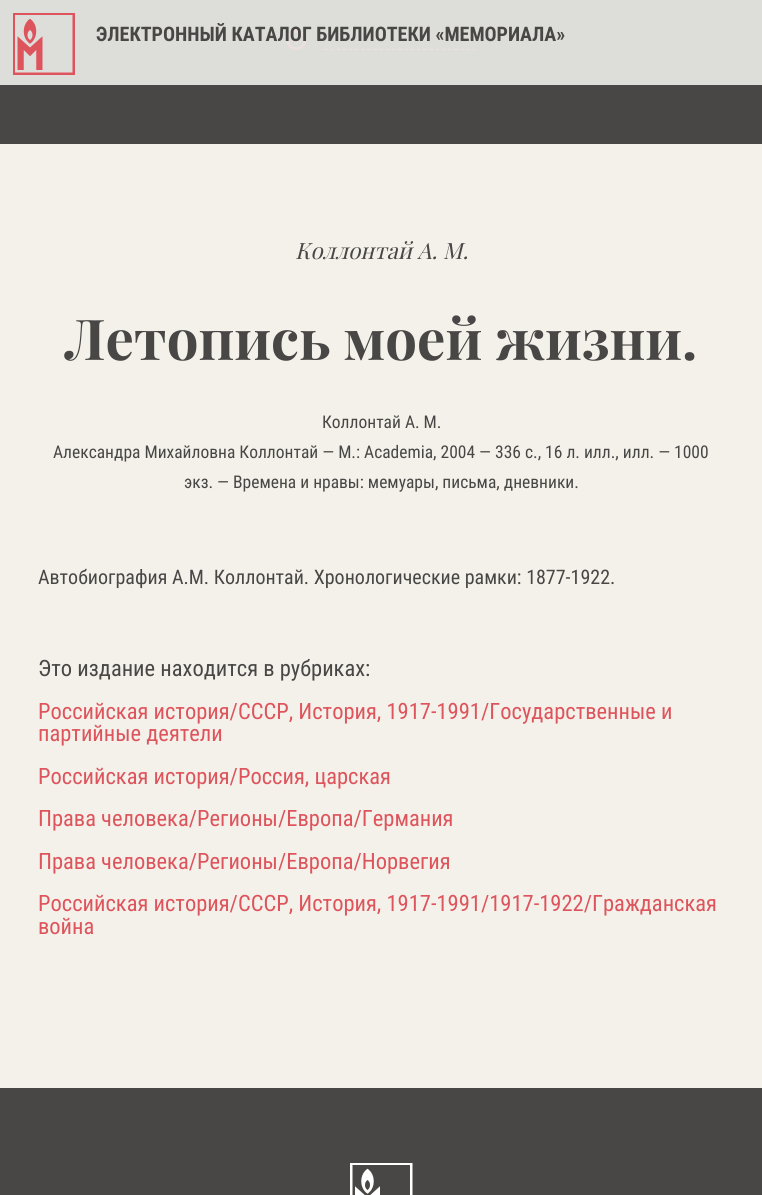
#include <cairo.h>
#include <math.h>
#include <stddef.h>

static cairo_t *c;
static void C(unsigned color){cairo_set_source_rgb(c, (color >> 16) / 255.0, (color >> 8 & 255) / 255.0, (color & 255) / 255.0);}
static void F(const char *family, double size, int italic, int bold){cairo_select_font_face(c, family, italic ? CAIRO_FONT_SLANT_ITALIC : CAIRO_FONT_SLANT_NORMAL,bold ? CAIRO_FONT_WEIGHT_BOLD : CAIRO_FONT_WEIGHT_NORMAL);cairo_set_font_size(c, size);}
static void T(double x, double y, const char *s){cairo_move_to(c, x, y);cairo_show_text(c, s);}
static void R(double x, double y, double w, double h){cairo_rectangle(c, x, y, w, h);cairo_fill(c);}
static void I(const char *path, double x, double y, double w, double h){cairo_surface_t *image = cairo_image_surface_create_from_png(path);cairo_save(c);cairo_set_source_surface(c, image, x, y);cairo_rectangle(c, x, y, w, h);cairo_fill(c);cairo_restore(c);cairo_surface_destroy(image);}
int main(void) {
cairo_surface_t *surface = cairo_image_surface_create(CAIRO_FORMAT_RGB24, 762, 1195);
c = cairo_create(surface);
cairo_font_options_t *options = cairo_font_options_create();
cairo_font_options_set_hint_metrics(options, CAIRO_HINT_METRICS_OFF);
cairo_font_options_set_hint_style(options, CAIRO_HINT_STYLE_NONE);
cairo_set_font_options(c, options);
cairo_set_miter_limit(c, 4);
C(0xf4f1ea);
cairo_paint(c);
C(0xdddeda);
R(0,0,762,85);
I("1.png",13,13,62,62);
I("2.png",286,30,20,20);
F("Roboto Condensed",20,0,1);
C(0x484745);
T(96,41,"ЭЛЕКТРОННЫЙ КАТАЛОГ БИБЛИОТЕКИ «МЕМОРИАЛА»");
R(0,85,762,59);
cairo_new_path(c);
cairo_move_to(c,324,49.5);
cairo_line_to(c,476,49.5);
C(0xece0dc);
cairo_set_line_width(c,1.2);
cairo_set_dash(c,(double[]){3.75,2.45},2,0);
cairo_stroke(c);
F("Playfair Display",22.5,1,0);
C(0x484745);
T(295,259,"Коллонтай А. М.");
F("Playfair Display",56.25,0,1);
T(65,360,"Летопись моей жизни.");
F("Roboto Condensed",17.5,0,0);
T(322,428,"Коллонтай А. М.");
T(53,458,"Александра Михайловна Коллонтай — М.: Academia, 2004 — 336 с., 16 л. илл., илл. — 1000");
T(184,488,"экз. — Времена и нравы: мемуары, письма, дневники.");
F("Roboto Condensed",20,0,0);
T(38,584,"Автобиография А.М. Коллонтай. Хронологические рамки: 1877-1922.");
F("Roboto Condensed",22.5,0,0);
T(38,676,"Это издание находится в рубриках:");
C(0xdd545c);
T(38,719,"Российская история/СССР, История, 1917-1991/Государственные и");
T(38,741,"партийные деятели");
T(38,784,"Российская история/Россия, царская");
T(38,826,"Права человека/Регионы/Европа/Германия");
T(38,869,"Права человека/Регионы/Европа/Норвегия");
T(38,911,"Российская история/СССР, История, 1917-1991/1917-1922/Гражданская");
T(38,934,"война");
C(0x484745);
R(0,1088,762,107);
I("3.png",350,1163,63,32);
cairo_surface_write_to_png(surface, "o.png");
cairo_font_options_destroy(options);
cairo_destroy(c);
cairo_surface_destroy(surface);
return 0;
}
